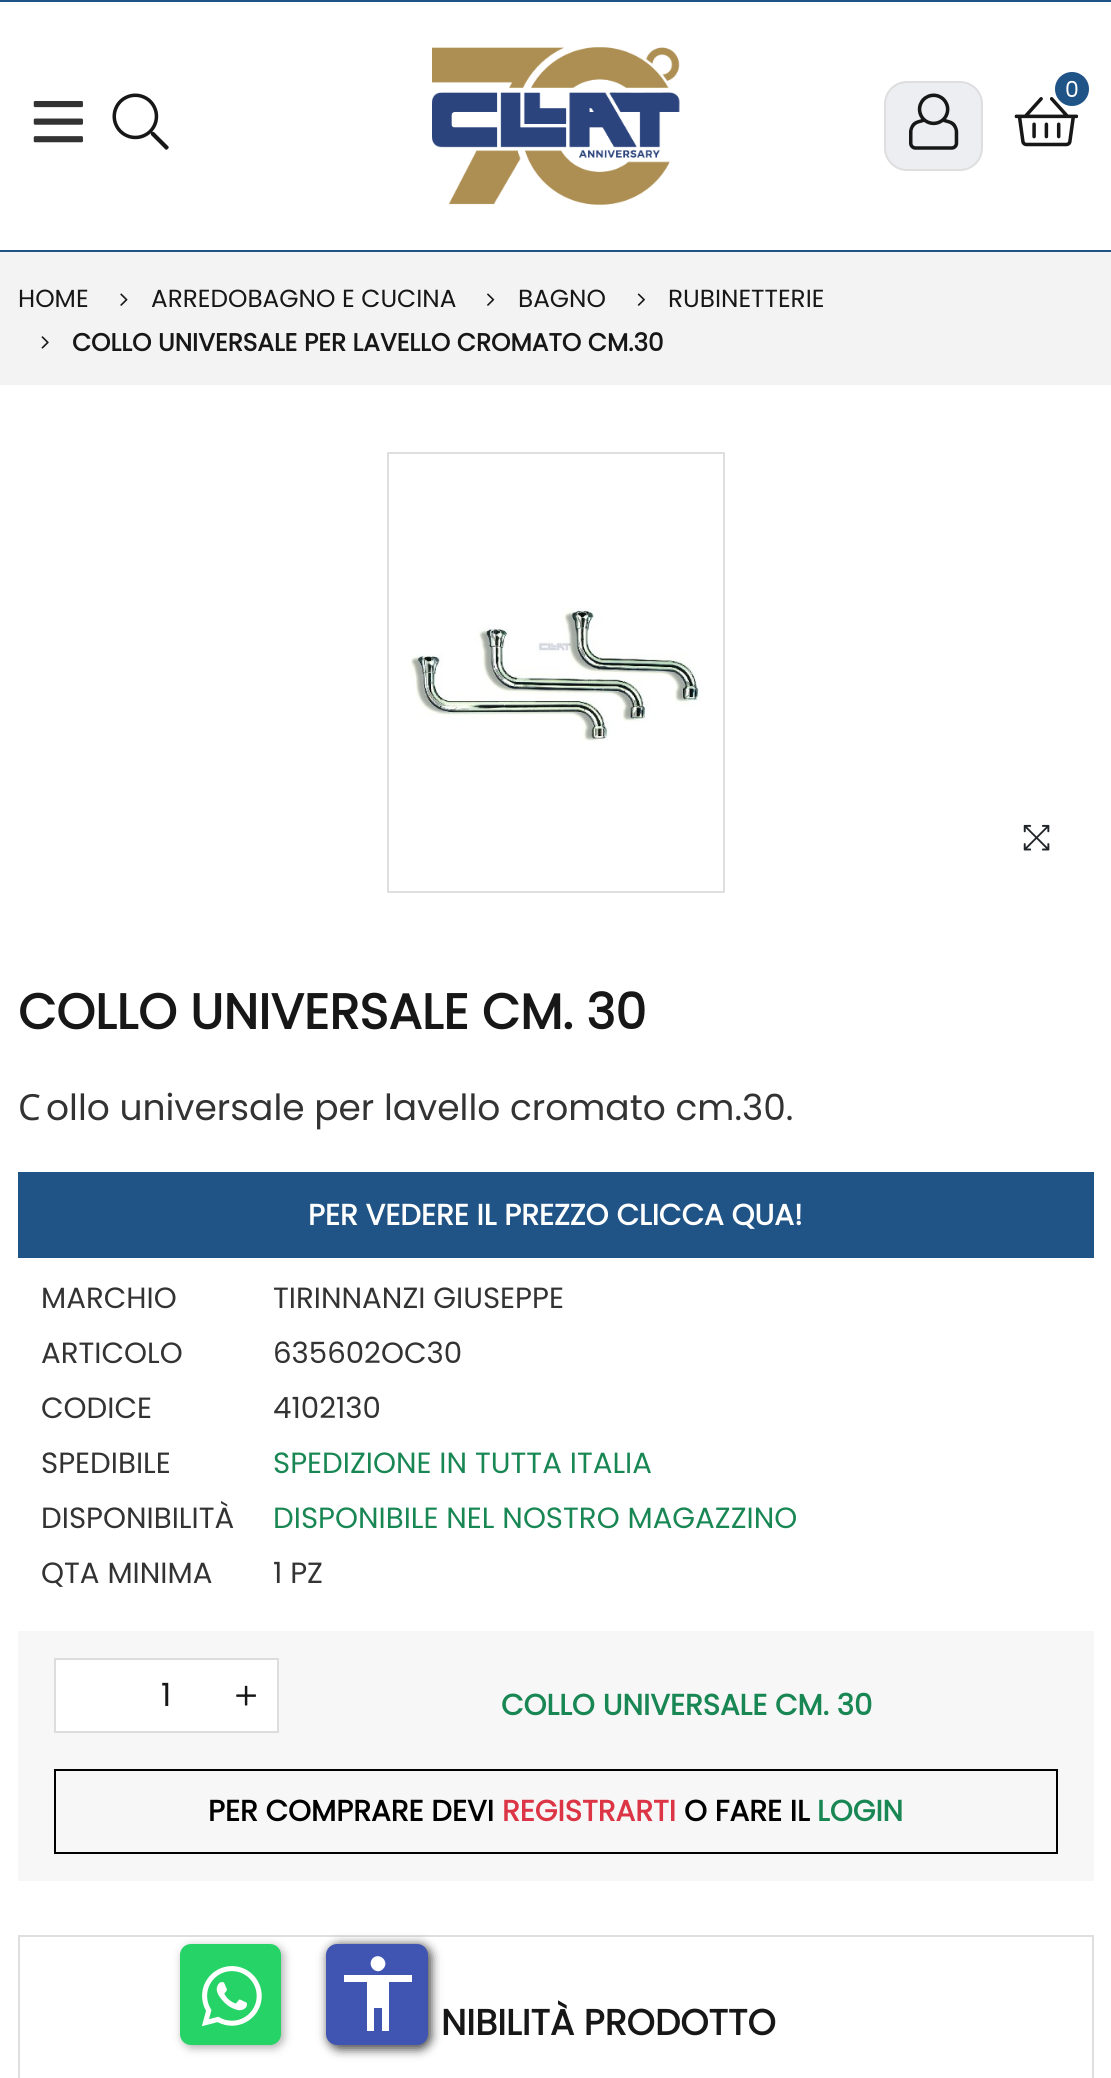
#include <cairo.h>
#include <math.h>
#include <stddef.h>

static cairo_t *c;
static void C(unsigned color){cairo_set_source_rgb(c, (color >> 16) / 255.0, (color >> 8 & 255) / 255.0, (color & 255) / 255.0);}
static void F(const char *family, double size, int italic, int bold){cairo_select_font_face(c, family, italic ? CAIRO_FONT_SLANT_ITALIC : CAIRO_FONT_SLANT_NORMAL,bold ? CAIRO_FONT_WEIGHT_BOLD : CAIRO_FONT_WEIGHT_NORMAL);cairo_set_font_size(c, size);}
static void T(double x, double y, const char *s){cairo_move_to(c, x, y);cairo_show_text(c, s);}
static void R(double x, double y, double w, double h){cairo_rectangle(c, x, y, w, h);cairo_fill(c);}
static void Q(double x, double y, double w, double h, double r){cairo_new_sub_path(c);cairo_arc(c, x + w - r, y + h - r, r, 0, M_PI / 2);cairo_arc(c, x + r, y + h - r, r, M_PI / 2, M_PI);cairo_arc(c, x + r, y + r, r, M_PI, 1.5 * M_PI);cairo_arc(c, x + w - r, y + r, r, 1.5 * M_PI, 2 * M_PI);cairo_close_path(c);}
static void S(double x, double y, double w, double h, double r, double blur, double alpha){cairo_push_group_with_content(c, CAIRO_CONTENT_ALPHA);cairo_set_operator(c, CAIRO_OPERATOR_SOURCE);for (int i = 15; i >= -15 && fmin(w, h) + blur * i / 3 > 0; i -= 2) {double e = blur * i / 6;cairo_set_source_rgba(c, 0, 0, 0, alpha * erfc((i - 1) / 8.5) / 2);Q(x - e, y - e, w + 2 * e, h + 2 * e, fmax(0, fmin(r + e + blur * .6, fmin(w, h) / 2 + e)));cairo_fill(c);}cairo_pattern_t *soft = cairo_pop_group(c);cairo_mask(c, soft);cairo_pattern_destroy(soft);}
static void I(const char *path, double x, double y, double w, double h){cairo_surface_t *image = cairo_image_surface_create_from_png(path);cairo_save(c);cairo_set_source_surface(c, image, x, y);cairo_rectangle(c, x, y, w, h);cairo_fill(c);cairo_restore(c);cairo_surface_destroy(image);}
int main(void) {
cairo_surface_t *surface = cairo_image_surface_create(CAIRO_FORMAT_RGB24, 1111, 2078);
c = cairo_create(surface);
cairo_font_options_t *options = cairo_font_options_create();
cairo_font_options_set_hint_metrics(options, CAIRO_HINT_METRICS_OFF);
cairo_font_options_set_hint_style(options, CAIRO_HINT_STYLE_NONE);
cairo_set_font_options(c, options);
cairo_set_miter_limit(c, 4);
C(0xffffff);
cairo_paint(c);
C(0x215486);
R(0,0,1111,2);
R(0,250,1111,2);
I("1.png",432,47,248,158);
C(0xeceef2);
Q(885,82,97,88,22);
cairo_fill_preserve(c);
C(0xdededf);
cairo_stroke(c);
I("2.png",909,93,50,57);
I("3.png",1014,97,65,50);
C(0x215486);
cairo_arc(c,1072,89,17,0,2 * M_PI);
cairo_fill(c);
F("Poppins",22,0,0);
C(0xffffff);
T(1065,97,"0");
I("4.png",33,101,50,42);
I("5.png",112,93,57,57);
C(0xf3f3f3);
R(0,252,1111,133);
F("Poppins",24.75,0,0);
C(0x171717);
T(18,307,"HOME");
I("6.png",120,293,8,13);
T(151,307,"ARREDOBAGNO E CUCINA");
I("7.png",487,293,8,13);
T(518,307,"BAGNO");
I("8.png",637,293,8,13);
T(668,307,"RUBINETTERIE");
I("9.png",41,336,8,13);
F("Poppins",24.75,0,1);
T(72,351,"COLLO UNIVERSALE PER LAVELLO CROMATO CM.30");
cairo_rectangle(c,388,453,336,439);
C(0xdfdfdf);
cairo_stroke(c);
I("10.png",410,608,291,133);
I("11.png",1023,824,27,27);
F("Poppins",49.5,0,1);
C(0x171717);
T(18,1029,"COLLO UNIVERSALE CM. 30");
F("Noto Sans",36,0,0);
C(0x333333);
T(18,1120,"C");
F("Poppins",36,0,0);
T(46,1120,"ollo universale per lavello cromato cm.30.");
C(0x215486);
R(18,1172,1076,86);
F("Poppins",29.25,0,1);
C(0xffffff);
T(308,1225,"PER VEDERE IL PREZZO CLICCA QUA!");
F("Poppins",29.25,0,0);
C(0x333333);
T(41,1308,"MARCHIO");
T(273,1308,"TIRINNANZI GIUSEPPE");
T(41,1363,"ARTICOLO");
T(273,1363,"635602OC30");
T(41,1418,"CODICE");
T(273,1418,"4102130");
T(41,1473,"SPEDIBILE");
C(0x198754);
T(273,1473,"SPEDIZIONE IN TUTTA ITALIA");
C(0x333333);
T(41,1528,"DISPONIBILITÀ");
C(0x198754);
T(273,1528,"DISPONIBILE NEL NOSTRO MAGAZZINO");
C(0x333333);
T(41,1583,"QTA MINIMA");
T(273,1583,"1 PZ");
C(0xf7f7f7);
R(18,1631,1076,250);
C(0xffffff);
cairo_rectangle(c,55,1659,223,73);
cairo_fill_preserve(c);
C(0xdddddd);
cairo_stroke(c);
F("Poppins",32,0,0);
C(0x171717);
T(161,1706,"1");
I("12.png",236,1685,20,21);
F("Poppins",29.25,0,1);
C(0x198754);
T(501,1715,"COLLO UNIVERSALE CM. 30");
cairo_rectangle(c,55,1770,1002,83);
C(0x000000);
cairo_stroke(c);
T(208,1821,"PER COMPRARE DEVI");
C(0xdc3545);
T(502,1821,"REGISTRARTI");
C(0x000000);
T(684,1821,"O FARE IL");
C(0x198754);
T(817,1821,"LOGIN");
cairo_rectangle(c,19,1936,1074,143);
C(0xdfdfdf);
cairo_stroke(c);
F("Poppins",36,0,1);
C(0x171717);
T(441,2035,"NIBILITÀ PRODOTTO");
C(0x000000);
S(329,1946,101,102,11,5.5,.5);
C(0x3c3c3c);
S(182,1946,102,102,11,4.5,.4);
C(0x25d366);
Q(180,1944,101,101,11);
cairo_fill(c);
I("13.png",201,1966,61,61);
C(0x000000);
S(329,1946,101,102,11,5.5,.5);
C(0x4054b2);
Q(326,1944,102,101,11);
cairo_fill(c);
C(0xffffff);
cairo_new_path(c);
cairo_move_to(c,412,1982);
cairo_line_to(c,389,1982);
cairo_line_to(c,389,2031);
cairo_line_to(c,382,2031);
cairo_line_to(c,382,2008);
cairo_line_to(c,374,2008);
cairo_line_to(c,374,2031);
cairo_line_to(c,367,2031);
cairo_line_to(c,367,1982);
cairo_line_to(c,344,1982);
cairo_line_to(c,344,1975);
cairo_line_to(c,412,1975);
cairo_close_path(c);
cairo_move_to(c,373,1958);
cairo_curve_to(c,380,1952,390,1962,383,1969);
cairo_curve_to(c,376,1976,366,1965,373,1958);
cairo_close_path(c);
cairo_fill(c);
cairo_surface_write_to_png(surface, "o.png");
cairo_font_options_destroy(options);
cairo_destroy(c);
cairo_surface_destroy(surface);
return 0;
}
